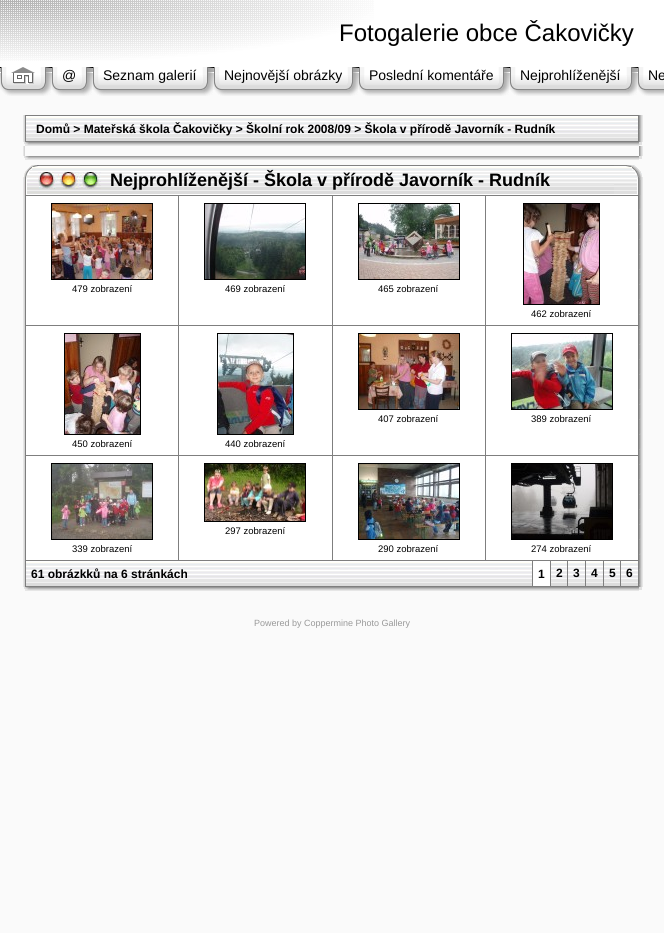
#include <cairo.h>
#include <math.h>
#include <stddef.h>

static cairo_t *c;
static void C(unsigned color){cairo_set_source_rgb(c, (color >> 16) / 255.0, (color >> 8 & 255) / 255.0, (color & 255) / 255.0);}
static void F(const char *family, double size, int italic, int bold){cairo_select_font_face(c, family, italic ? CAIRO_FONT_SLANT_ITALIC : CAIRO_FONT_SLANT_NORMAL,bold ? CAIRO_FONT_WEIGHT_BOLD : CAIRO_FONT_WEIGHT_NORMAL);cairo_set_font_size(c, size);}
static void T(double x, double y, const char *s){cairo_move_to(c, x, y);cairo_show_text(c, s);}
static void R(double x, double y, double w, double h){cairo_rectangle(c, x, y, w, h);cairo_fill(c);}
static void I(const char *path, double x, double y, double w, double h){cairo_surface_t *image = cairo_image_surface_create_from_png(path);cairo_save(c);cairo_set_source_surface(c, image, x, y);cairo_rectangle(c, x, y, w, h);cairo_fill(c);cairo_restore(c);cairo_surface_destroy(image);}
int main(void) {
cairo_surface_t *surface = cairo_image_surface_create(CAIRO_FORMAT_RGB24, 664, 933);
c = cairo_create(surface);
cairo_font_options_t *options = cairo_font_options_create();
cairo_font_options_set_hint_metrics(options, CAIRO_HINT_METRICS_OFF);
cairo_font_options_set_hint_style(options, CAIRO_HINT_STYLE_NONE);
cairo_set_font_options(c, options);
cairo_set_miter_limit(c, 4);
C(0xfafafa);
cairo_paint(c);
C(0xffffff);
R(0,0,664,65);
I("1.png",0,0,374,61);
F("Liberation Sans",24,0,0);
C(0x000000);
T(339,41,"Fotogalerie obce Čakovičky");
I("2.png",0,65,664,25);
I("3.png",1,67,10,29);
I("4.png",11,67,24,29);
I("5.png",11,67,24,17);
I("6.png",35,67,16,29);
I("3.png",52,67,10,29);
I("7.png",62,67,14,29);
F("Liberation Sans",14,0,0);
T(62,80,"@");
I("6.png",76,67,16,29);
I("3.png",93,67,10,29);
I("8.png",103,67,94,29);
T(103,80,"Seznam galerií");
I("6.png",197,67,16,29);
I("3.png",214,67,10,29);
I("9.png",224,67,118,29);
T(224,80,"Nejnovější obrázky");
I("6.png",342,67,16,29);
I("3.png",359,67,10,29);
I("10.png",369,67,124,29);
T(369,80,"Poslední komentáře");
I("6.png",493,67,16,29);
I("3.png",510,67,10,29);
I("11.png",520,67,101,29);
T(520,80,"Nejprohlíženější");
I("6.png",621,67,16,29);
I("3.png",638,67,10,29);
I("12.png",648,67,16,29);
T(648,80,"Ne");
I("13.png",23,115,2,27);
C(0x7f7f7f);
R(25,115,614,27);
C(0xffffff);
R(26,116,612,1);
I("14.png",26,117,612,24);
F("Liberation Sans",12,0,1);
C(0x000000);
T(36,133,"Domů > Mateřská škola Čakovičky > Školní rok 2008/09 > Škola v přírodě Javorník - Rudník");
I("15.png",639,115,4,27);
C(0xe3e3e3);
R(24,142,1,2);
I("16.png",25,142,614,4);
I("17.png",25,142,4,3);
C(0xe1e1e1);
R(639,142,3,3);
I("18.png",23,146,2,10);
I("19.png",639,146,4,10);
C(0xe3e3e3);
R(24,156,1,2);
I("16.png",25,156,614,4);
I("17.png",25,156,4,3);
C(0xe1e1e1);
R(639,156,3,3);
I("20.png",23,165,87,30);
I("21.png",110,165,504,30);
F("Liberation Sans",18,0,1);
C(0x000000);
T(110,186,"Nejprohlíženější - Škola v přírodě Javorník - Rudník");
I("22.png",614,165,29,30);
I("23.png",23,195,2,392);
C(0x7f7f7f);
R(25,195,614,392);
C(0xffffff);
R(26,196,152,129);
cairo_rectangle(c,51.5,203.5,101,76);
C(0x000000);
cairo_set_line_width(c,1);
cairo_stroke(c);
I("24.png",52,204,100,75);
F("Liberation Sans",9.5,0,0);
T(72,292,"479 zobrazení");
C(0xffffff);
R(179,196,153,129);
cairo_rectangle(c,204.5,203.5,101,76);
C(0x000000);
cairo_stroke(c);
I("25.png",205,204,100,75);
T(225,292,"469 zobrazení");
C(0xffffff);
R(333,196,152,129);
cairo_rectangle(c,358.5,203.5,101,76);
C(0x000000);
cairo_stroke(c);
I("26.png",359,204,100,75);
T(378,292,"465 zobrazení");
C(0xffffff);
R(486,196,152,129);
cairo_rectangle(c,523.5,203.5,76,101);
C(0x000000);
cairo_stroke(c);
I("27.png",524,204,75,100);
T(531,317,"462 zobrazení");
C(0xffffff);
R(333,326,152,129);
cairo_rectangle(c,358.5,333.5,101,76);
C(0x000000);
cairo_stroke(c);
I("28.png",359,334,100,75);
T(378,422,"407 zobrazení");
C(0xffffff);
R(486,326,152,129);
cairo_rectangle(c,511.5,333.5,101,76);
C(0x000000);
cairo_stroke(c);
I("29.png",512,334,100,75);
T(531,422,"389 zobrazení");
C(0xffffff);
R(26,326,152,129);
cairo_rectangle(c,64.5,333.5,76,101);
C(0x000000);
cairo_stroke(c);
I("30.png",65,334,75,100);
T(72,447,"450 zobrazení");
C(0xffffff);
R(179,326,153,129);
cairo_rectangle(c,217.5,333.5,76,101);
C(0x000000);
cairo_stroke(c);
I("31.png",218,334,75,100);
T(225,447,"440 zobrazení");
C(0xffffff);
R(179,456,153,104);
cairo_rectangle(c,204.5,463.5,101,58);
C(0x000000);
cairo_stroke(c);
I("32.png",205,464,100,57);
T(225,534,"297 zobrazení");
C(0xffffff);
R(26,456,152,104);
cairo_rectangle(c,51.5,463.5,101,76);
C(0x000000);
cairo_stroke(c);
I("33.png",52,464,100,75);
T(72,552,"339 zobrazení");
C(0xffffff);
R(333,456,152,104);
cairo_rectangle(c,358.5,463.5,101,76);
C(0x000000);
cairo_stroke(c);
I("34.png",359,464,100,75);
T(378,552,"290 zobrazení");
C(0xffffff);
R(486,456,152,104);
cairo_rectangle(c,511.5,463.5,101,76);
C(0x000000);
cairo_stroke(c);
I("35.png",512,464,100,75);
T(531,552,"274 zobrazení");
C(0xffffff);
R(26,561,506,1);
I("36.png",26,562,506,24);
F("Liberation Sans",12,0,1);
C(0x000000);
T(31,578,"61 obrázkků na 6 stránkách");
C(0xffffff);
R(533,561,17,25);
C(0x000000);
T(538,578,"1");
C(0xffffff);
R(551,561,16,1);
I("37.png",551,562,16,24);
C(0x000000);
T(556,577,"2");
C(0xffffff);
R(568,561,17,1);
I("38.png",568,562,17,24);
C(0x000000);
T(573,577,"3");
C(0xffffff);
R(586,561,17,1);
I("38.png",586,562,17,24);
C(0x000000);
T(591,577,"4");
C(0xffffff);
R(604,561,16,1);
I("37.png",604,562,16,24);
C(0x000000);
T(609,577,"5");
C(0xffffff);
R(621,561,17,1);
I("38.png",621,562,17,24);
C(0x000000);
T(626,577,"6");
I("39.png",639,195,4,392);
C(0xe3e3e3);
R(24,587,1,2);
I("16.png",25,587,614,4);
I("17.png",25,587,4,3);
C(0xe1e1e1);
R(639,587,3,3);
F("Liberation Sans",9,0,0);
C(0x999999);
T(254,626,"Powered by Coppermine Photo Gallery");
cairo_surface_write_to_png(surface, "o.png");
cairo_font_options_destroy(options);
cairo_destroy(c);
cairo_surface_destroy(surface);
return 0;
}
